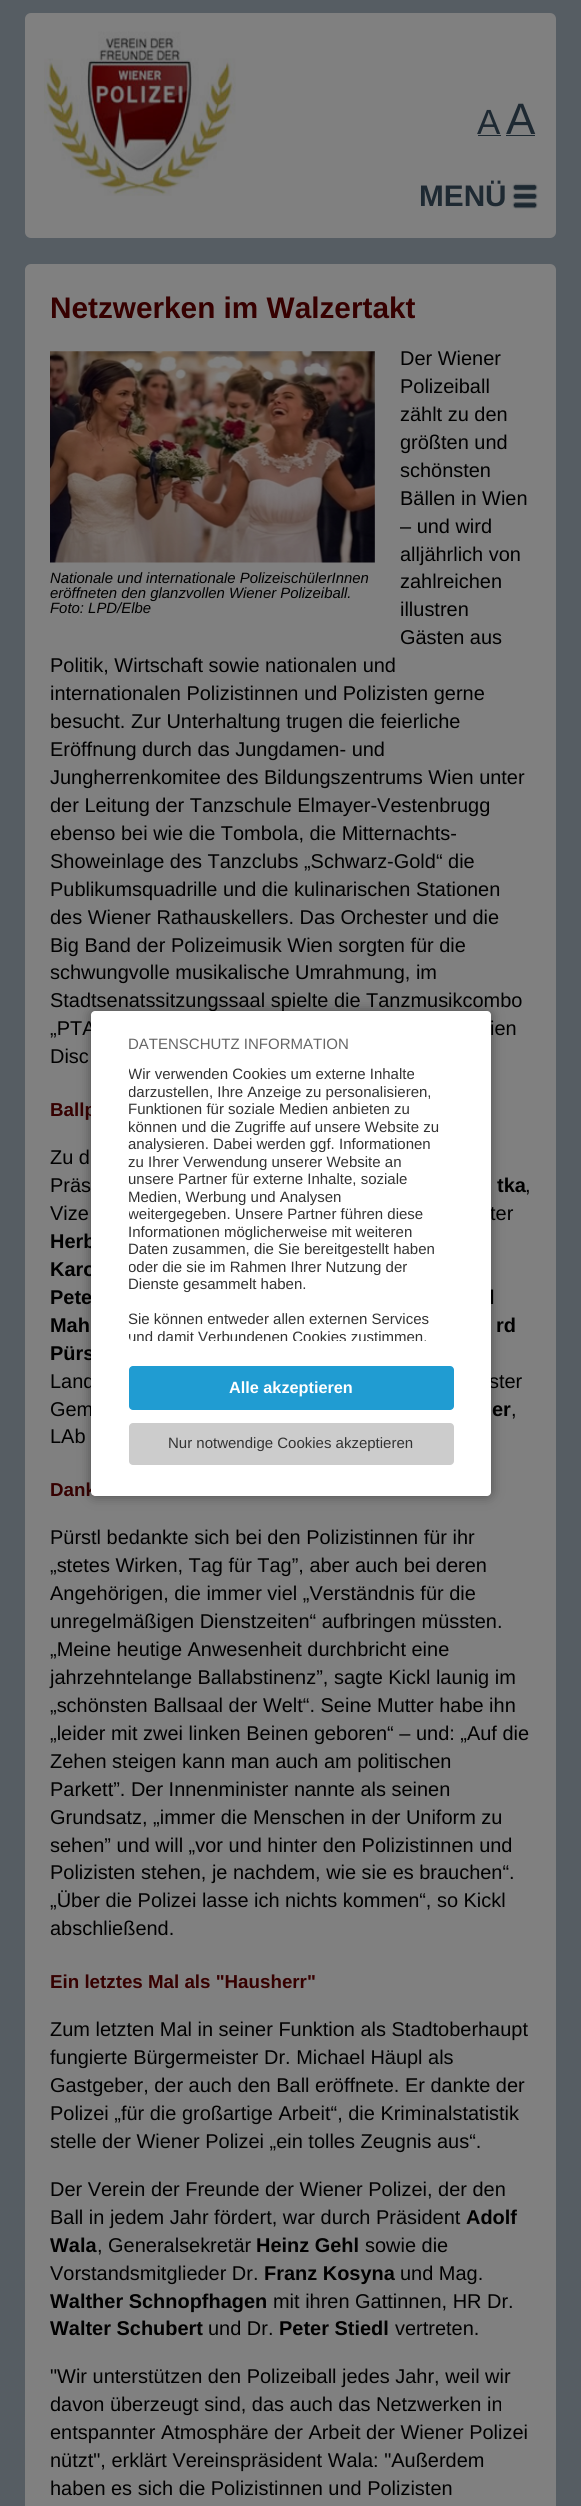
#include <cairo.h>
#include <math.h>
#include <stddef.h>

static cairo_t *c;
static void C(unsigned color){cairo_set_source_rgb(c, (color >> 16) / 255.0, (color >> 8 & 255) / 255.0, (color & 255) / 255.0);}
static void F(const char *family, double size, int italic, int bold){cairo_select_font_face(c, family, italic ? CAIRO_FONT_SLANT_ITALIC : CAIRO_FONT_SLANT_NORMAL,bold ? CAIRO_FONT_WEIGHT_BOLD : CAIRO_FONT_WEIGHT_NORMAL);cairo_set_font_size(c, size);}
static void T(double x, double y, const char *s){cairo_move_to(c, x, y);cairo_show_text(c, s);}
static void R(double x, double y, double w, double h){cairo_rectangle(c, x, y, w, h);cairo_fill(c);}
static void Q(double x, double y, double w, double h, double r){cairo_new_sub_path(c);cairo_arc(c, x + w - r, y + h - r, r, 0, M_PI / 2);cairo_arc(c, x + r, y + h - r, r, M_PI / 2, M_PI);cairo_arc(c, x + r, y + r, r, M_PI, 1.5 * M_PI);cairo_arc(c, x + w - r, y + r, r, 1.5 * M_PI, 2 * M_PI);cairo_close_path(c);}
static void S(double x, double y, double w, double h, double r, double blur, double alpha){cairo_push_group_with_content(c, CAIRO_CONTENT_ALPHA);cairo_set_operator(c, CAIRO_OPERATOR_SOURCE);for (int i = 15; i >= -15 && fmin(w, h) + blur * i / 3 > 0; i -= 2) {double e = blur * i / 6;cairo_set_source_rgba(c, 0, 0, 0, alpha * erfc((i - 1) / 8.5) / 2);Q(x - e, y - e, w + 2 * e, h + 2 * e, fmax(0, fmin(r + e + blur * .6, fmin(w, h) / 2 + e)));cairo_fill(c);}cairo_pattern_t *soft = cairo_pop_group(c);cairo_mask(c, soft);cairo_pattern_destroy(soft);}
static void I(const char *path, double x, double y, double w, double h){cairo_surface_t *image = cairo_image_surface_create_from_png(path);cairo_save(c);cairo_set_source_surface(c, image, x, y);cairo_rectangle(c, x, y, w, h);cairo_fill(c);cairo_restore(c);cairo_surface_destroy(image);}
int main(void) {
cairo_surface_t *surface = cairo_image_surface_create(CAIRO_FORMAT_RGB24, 581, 2506);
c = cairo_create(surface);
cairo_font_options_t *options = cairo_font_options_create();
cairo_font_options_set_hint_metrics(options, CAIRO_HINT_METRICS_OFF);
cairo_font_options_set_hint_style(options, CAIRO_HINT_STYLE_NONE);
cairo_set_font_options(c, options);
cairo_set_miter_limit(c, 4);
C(0x565d63);
cairo_paint(c);
C(0x808080);
Q(25,13,531,225,6);
cairo_fill(c);
I("1.png",44,31,192,165);
F("Liberation Sans",35,0,0);
C(0x1e2932);
T(477,134,"A");
C(0x1d2932);
R(478,135,23,1);
R(506,135,29,1);
F("Liberation Sans",44,0,0);
C(0x1e2932);
T(506,134,"A");
I("2.png",512,183,26,26);
F("Liberation Sans",29.75,0,1);
T(419,206,"MENÜ");
C(0x808080);
Q(25,264,531,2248,6);
cairo_fill(c);
C(0x360000);
T(50,318,"Netzwerken im Walzertakt");
F("Liberation Sans",19.95,0,0);
C(0x000000);
T(400,365,"Der Wiener");
T(400,393,"Polizeiball");
T(400,421,"zählt zu den");
T(400,449,"größten und");
T(400,477,"schönsten");
T(400,505,"Bällen in Wien");
T(400,533,"– und wird");
T(400,561,"alljährlich von");
T(400,588,"zahlreichen");
T(400,616,"illustren");
T(400,644,"Gästen aus");
T(50,672,"Politik, Wirtschaft sowie nationalen und");
T(50,700,"internationalen Polizistinnen und Polizisten gerne");
T(50,728,"besucht. Zur Unterhaltung trugen die feierliche");
T(50,756,"Eröffnung durch das Jungdamen- und");
T(50,784,"Jungherrenkomitee des Bildungszentrums Wien unter");
T(50,812,"der Leitung der Tanzschule Elmayer-Vestenbrugg");
T(50,840,"ebenso bei wie die Tombola, die Mitternachts-");
T(50,868,"Showeinlage des Tanzclubs „Schwarz-Gold“ die");
T(50,896,"Publikumsquadrille und die kulinarischen Stationen");
T(50,924,"des Wiener Rathauskellers. Das Orchester und die");
T(50,952,"Big Band der Polizeimusik Wien sorgten für die");
T(50,979,"schwungvolle musikalische Umrahmung, im");
T(50,1007,"Stadtsenatssitzungssaal spielte die Tanzmusikcombo");
T(50,1035,"„PTA");
T(490,1035,"ien");
T(50,1063,"Disc");
I("3.png",50,351,325,212);
F("Liberation Sans",14.9,1,0);
T(50,583,"Nationale und internationale PolizeischülerInnen");
T(50,598,"eröffneten den glanzvollen Wiener Polizeiball.");
T(50,613,"Foto: LPD/Elbe");
F("Liberation Sans",18.75,0,1);
C(0x360000);
T(50,1116,"Ballp");
F("Liberation Sans",19.95,0,0);
C(0x000000);
T(50,1164,"Zu d");
T(50,1192,"Präs");
F("Liberation Sans",19.95,0,1);
T(497,1192,"tka");
F("Liberation Sans",19.95,0,0);
T(525,1192,",");
T(50,1220,"Vize");
T(490,1220,"ter");
F("Liberation Sans",19.95,0,1);
T(50,1248,"Herb");
T(50,1276,"Karo");
T(50,1304,"Pete");
T(489,1304,"l");
T(50,1332,"Mah");
T(496,1332,"rd");
T(50,1360,"Pürs");
F("Liberation Sans",19.95,0,0);
T(50,1388,"Land");
T(489,1388,"ster");
T(50,1416,"Gem");
F("Liberation Sans",19.95,0,1);
T(492,1416,"er");
F("Liberation Sans",19.95,0,0);
T(511,1416,",");
T(50,1443,"LAb");
F("Liberation Sans",18.75,0,1);
C(0x360000);
T(50,1496,"Dank");
F("Liberation Sans",19.95,0,0);
C(0x000000);
T(50,1544,"Pürstl bedankte sich bei den Polizistinnen für ihr");
T(50,1572,"„stetes Wirken, Tag für Tag”, aber auch bei deren");
T(50,1600,"Angehörigen, die immer viel „Verständnis für die");
T(50,1628,"unregelmäßigen Dienstzeiten“ aufbringen müssten.");
T(50,1656,"„Meine heutige Anwesenheit durchbricht eine");
T(50,1684,"jahrzehntelange Ballabstinenz”, sagte Kickl launig im");
T(50,1712,"„schönsten Ballsaal der Welt“. Seine Mutter habe ihn");
T(50,1740,"„leider mit zwei linken Beinen geboren“ – und: „Auf die");
T(50,1768,"Zehen steigen kann man auch am politischen");
T(50,1796,"Parkett”. Der Innenminister nannte als seinen");
T(50,1824,"Grundsatz, „immer die Menschen in der Uniform zu");
T(50,1852,"sehen” und will „vor und hinter den Polizistinnen und");
T(50,1879,"Polizisten stehen, je nachdem, wie sie es brauchen“.");
T(50,1907,"„Über die Polizei lasse ich nichts kommen“, so Kickl");
T(50,1935,"abschließend.");
F("Liberation Sans",18.75,0,1);
C(0x360000);
T(50,1988,"Ein letztes Mal als \"Hausherr\"");
F("Liberation Sans",19.95,0,0);
C(0x000000);
T(50,2036,"Zum letzten Mal in seiner Funktion als Stadtoberhaupt");
T(50,2064,"fungierte Bürgermeister Dr. Michael Häupl als");
T(50,2092,"Gastgeber, der auch den Ball eröffnete. Er dankte der");
T(50,2120,"Polizei „für die großartige Arbeit“, die Kriminalstatistik");
T(50,2148,"stelle der Wiener Polizei „ein tolles Zeugnis aus“.");
T(50,2196,"Der Verein der Freunde der Wiener Polizei, der den");
T(50,2224,"Ball in jedem Jahr fördert, war durch Präsident");
F("Liberation Sans",19.95,0,1);
T(466,2224,"Adolf");
T(50,2252,"Wala");
F("Liberation Sans",19.95,0,0);
T(97,2252,", Generalsekretär");
F("Liberation Sans",19.95,0,1);
T(256,2252,"Heinz Gehl");
F("Liberation Sans",19.95,0,0);
T(365,2252,"sowie die");
T(50,2280,"Vorstandsmitglieder Dr.");
F("Liberation Sans",19.95,0,1);
T(264,2280,"Franz Kosyna");
F("Liberation Sans",19.95,0,0);
T(400,2280,"und Mag.");
F("Liberation Sans",19.95,0,1);
T(50,2308,"Walther Schnopfhagen");
F("Liberation Sans",19.95,0,0);
T(273,2308,"mit ihren Gattinnen, HR Dr.");
F("Liberation Sans",19.95,0,1);
T(50,2335,"Walter Schubert");
F("Liberation Sans",19.95,0,0);
T(208,2335,"und Dr.");
F("Liberation Sans",19.95,0,1);
T(279,2335,"Peter Stiedl");
F("Liberation Sans",19.95,0,0);
T(395,2335,"vertreten.");
T(50,2383,"\"Wir unterstützen den Polizeiball jedes Jahr, weil wir");
T(50,2411,"davon überzeugt sind, das auch das Netzwerken in");
T(50,2439,"entspannter Atmosphäre der Arbeit der Wiener Polizei");
T(50,2467,"nützt\", erklärt Vereinspräsident Wala: \"Außerdem");
T(50,2495,"haben es sich die Polizistinnen und Polizisten");
C(0x000000);
S(91,1011,400,485,4,6,.4);
C(0xffffff);
Q(91,1011,400,485,4);
cairo_fill(c);
F("Liberation Sans",15,0,0);
C(0x666666);
T(128,1049,"DATENSCHUTZ INFORMATION");
cairo_save(c);
Q(129,1066,325,275,4);
cairo_clip(c);
C(0x333333);
T(128,1079,"Wir verwenden Cookies um externe Inhalte");
T(128,1097,"darzustellen, Ihre Anzeige zu personalisieren,");
cairo_restore(c);
C(0x333333);
T(128,1114,"Funktionen für soziale Medien anbieten zu");
T(128,1132,"können und die Zugriffe auf unsere Website zu");
T(128,1149,"analysieren. Dabei werden ggf. Informationen");
T(128,1167,"zu Ihrer Verwendung unserer Website an");
T(128,1184,"unsere Partner für externe Inhalte, soziale");
T(128,1202,"Medien, Werbung und Analysen");
cairo_save(c);
Q(129,1066,325,275,4);
cairo_clip(c);
T(128,1219,"weitergegeben. Unsere Partner führen diese");
cairo_restore(c);
T(128,1237,"Informationen möglicherweise mit weiteren");
T(128,1254,"Daten zusammen, die Sie bereitgestellt haben");
cairo_save(c);
Q(129,1066,325,275,4);
cairo_clip(c);
T(128,1272,"oder die sie im Rahmen Ihrer Nutzung der");
cairo_restore(c);
T(128,1289,"Dienste gesammelt haben.");
T(128,1324,"Sie können entweder allen externen Services");
cairo_save(c);
Q(129,1066,325,275,4);
cairo_clip(c);
T(128,1342,"und damit Verbundenen Cookies zustimmen,");
cairo_restore(c);
C(0x209cd2);
Q(129,1366,325,44,4);
cairo_fill(c);
F("Liberation Sans",16.25,0,1);
C(0xffffff);
T(229,1393,"Alle akzeptieren");
C(0xcccccc);
Q(129,1423,325,42,4);
cairo_fill(c);
F("Liberation Sans",15,0,0);
C(0x333333);
T(168,1448,"Nur notwendige Cookies akzeptieren");
cairo_surface_write_to_png(surface, "o.png");
cairo_font_options_destroy(options);
cairo_destroy(c);
cairo_surface_destroy(surface);
return 0;
}
